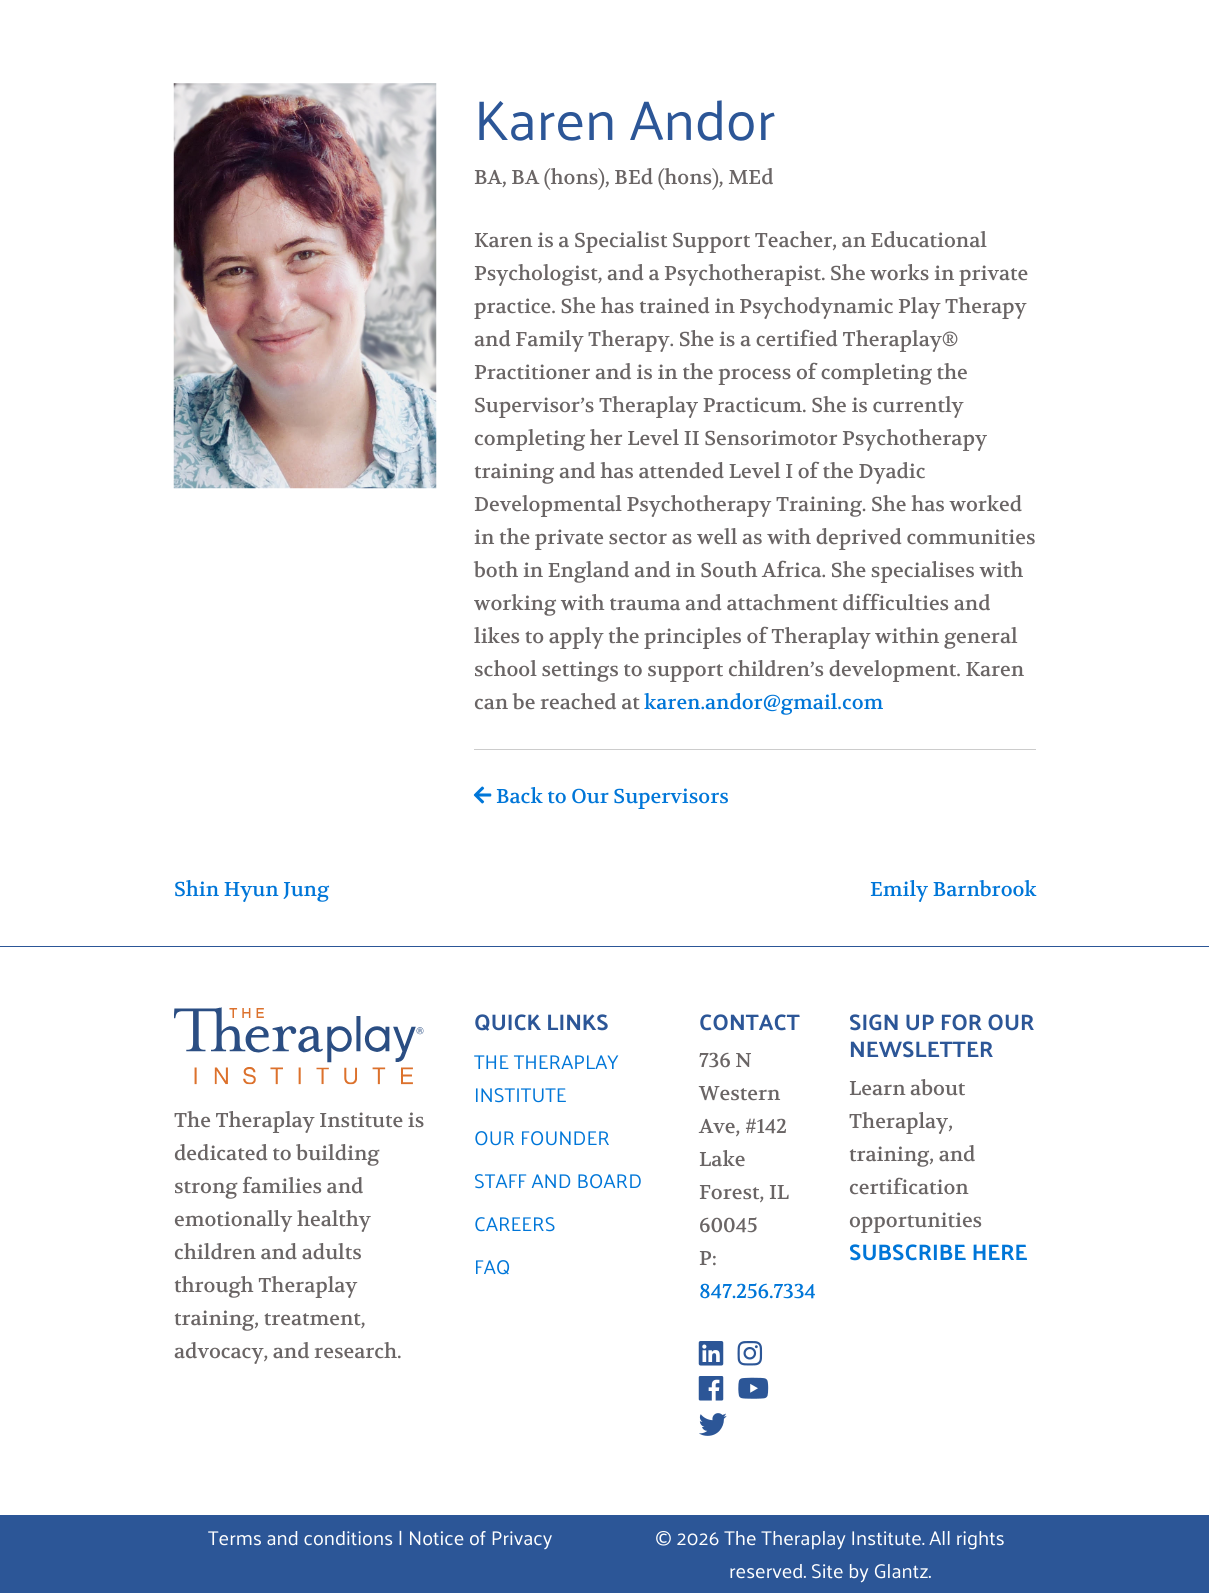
#include <cairo.h>
#include <math.h>
#include <stddef.h>

static cairo_t *c;
static void C(unsigned color){cairo_set_source_rgb(c, (color >> 16) / 255.0, (color >> 8 & 255) / 255.0, (color & 255) / 255.0);}
static void F(const char *family, double size, int italic, int bold){cairo_select_font_face(c, family, italic ? CAIRO_FONT_SLANT_ITALIC : CAIRO_FONT_SLANT_NORMAL,bold ? CAIRO_FONT_WEIGHT_BOLD : CAIRO_FONT_WEIGHT_NORMAL);cairo_set_font_size(c, size);}
static void T(double x, double y, const char *s){cairo_move_to(c, x, y);cairo_show_text(c, s);}
static void R(double x, double y, double w, double h){cairo_rectangle(c, x, y, w, h);cairo_fill(c);}
static void I(const char *path, double x, double y, double w, double h){cairo_surface_t *image = cairo_image_surface_create_from_png(path);cairo_save(c);cairo_set_source_surface(c, image, x, y);cairo_rectangle(c, x, y, w, h);cairo_fill(c);cairo_restore(c);cairo_surface_destroy(image);}
int main(void) {
cairo_surface_t *surface = cairo_image_surface_create(CAIRO_FORMAT_RGB24, 1209, 1593);
c = cairo_create(surface);
cairo_font_options_t *options = cairo_font_options_create();
cairo_font_options_set_hint_metrics(options, CAIRO_HINT_METRICS_OFF);
cairo_font_options_set_hint_style(options, CAIRO_HINT_STYLE_NONE);
cairo_set_font_options(c, options);
cairo_set_miter_limit(c, 4);
C(0xffffff);
cairo_paint(c);
I("1.png",173,83,264,406);
F("Palanquin",56.25,0,0);
C(0x2c5697);
T(474,140,"Karen Andor");
F("Volkhov",20,0,0);
C(0x6a6565);
T(474,184,"BA, BA (hons), BEd (hons), MEd");
T(474,247,"Karen is a Specialist Support Teacher, an Educational");
T(474,280,"Psychologist, and a Psychotherapist. She works in private");
T(474,313,"practice. She has trained in Psychodynamic Play Therapy");
T(474,346,"and Family Therapy. She is a certified Theraplay®");
T(474,379,"Practitioner and is in the process of completing the");
T(474,412,"Supervisor’s Theraplay Practicum. She is currently");
T(474,445,"completing her Level II Sensorimotor Psychotherapy");
T(474,478,"training and has attended Level I of the Dyadic");
T(474,511,"Developmental Psychotherapy Training. She has worked");
T(474,544,"in the private sector as well as with deprived communities");
T(474,577,"both in England and in South Africa. She specialises with");
T(474,610,"working with trauma and attachment difficulties and");
T(474,643,"likes to apply the principles of Theraplay within general");
T(474,676,"school settings to support children’s development. Karen");
T(474,709,"can be reached at");
C(0x0076d8);
T(644,709,"karen.andor@gmail.com");
C(0xcccccc);
R(474,749,562,1);
I("2.png",473,786,19,18);
C(0x0076d8);
T(496,803,"Back to Our Supervisors");
T(174,896,"Shin Hyun Jung");
T(870,896,"Emily Barnbrook");
C(0x2c5697);
R(0,946,1209,1);
I("3.png",174,1007,250,78);
C(0x6a6565);
T(174,1127,"The Theraplay Institute is");
T(174,1160,"dedicated to building");
T(174,1193,"strong families and");
T(174,1226,"emotionally healthy");
T(174,1259,"children and adults");
T(174,1292,"through Theraplay");
T(174,1325,"training, treatment,");
T(174,1358,"advocacy, and research.");
F("Palanquin",22.5,0,1);
C(0x2c5697);
T(474,1030,"QUICK LINKS");
F("Palanquin",20,0,0);
C(0x0076d8);
T(474,1069,"THE THERAPLAY");
T(474,1102,"INSTITUTE");
T(474,1145,"OUR FOUNDER");
T(474,1188,"STAFF AND BOARD");
T(474,1231,"CAREERS");
T(474,1274,"FAQ");
F("Palanquin",22.5,0,1);
C(0x2c5697);
T(699,1030,"CONTACT");
F("Volkhov",20,0,0);
C(0x6a6565);
T(699,1067,"736 N");
T(699,1100,"Western");
T(699,1133,"Ave, #142");
T(699,1166,"Lake");
T(699,1199,"Forest, IL");
T(699,1232,"60045");
T(699,1265,"P:");
C(0x0076d8);
T(699,1298,"847.256.7334");
I("4.png",698,1341,26,25);
I("5.png",737,1341,26,25);
I("6.png",698,1376,26,25);
I("7.png",738,1377,31,22);
I("8.png",699,1413,28,23);
F("Palanquin",22.5,0,1);
C(0x2c5697);
T(849,1030,"SIGN UP FOR OUR");
T(849,1057,"NEWSLETTER");
F("Volkhov",20,0,0);
C(0x6a6565);
T(849,1095,"Learn about");
T(849,1128,"Theraplay,");
T(849,1161,"training, and");
T(849,1194,"certification");
T(849,1227,"opportunities");
F("Palanquin",22.5,0,1);
C(0x0076d8);
T(849,1260,"SUBSCRIBE HERE");
C(0x2c5697);
R(0,1515,1209,78);
F("Palanquin",20,0,0);
C(0xffffff);
T(208,1545,"Terms and conditions | Notice of Privacy");
T(655,1545,"© 2026 The Theraplay Institute. All rights");
T(729,1578,"reserved. Site by Glantz.");
cairo_surface_write_to_png(surface, "o.png");
cairo_font_options_destroy(options);
cairo_destroy(c);
cairo_surface_destroy(surface);
return 0;
}
